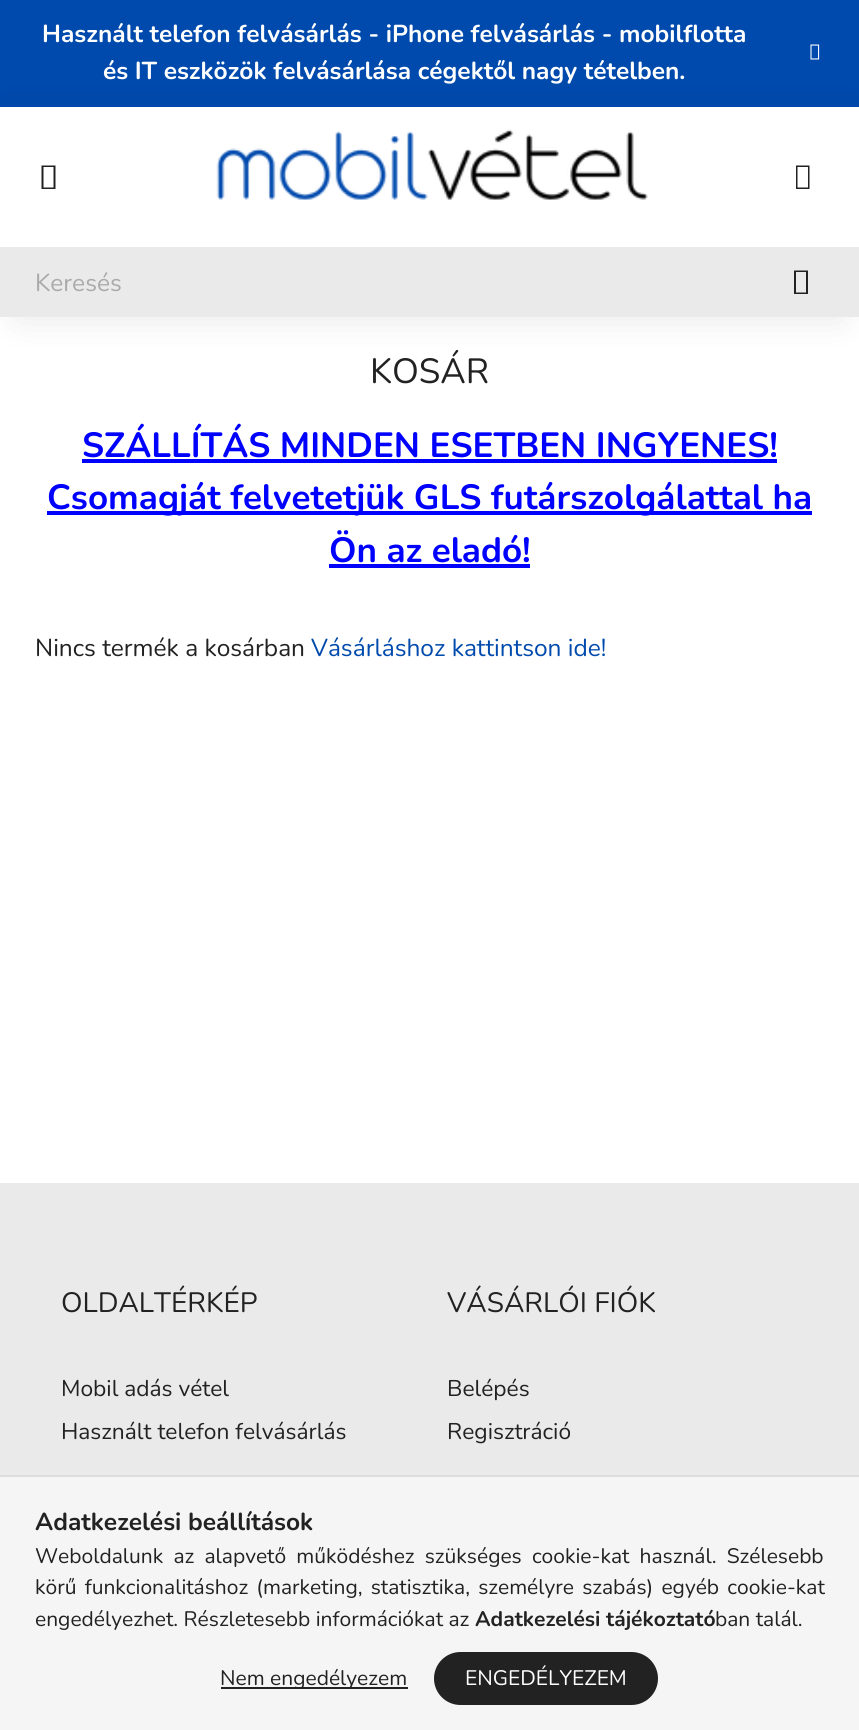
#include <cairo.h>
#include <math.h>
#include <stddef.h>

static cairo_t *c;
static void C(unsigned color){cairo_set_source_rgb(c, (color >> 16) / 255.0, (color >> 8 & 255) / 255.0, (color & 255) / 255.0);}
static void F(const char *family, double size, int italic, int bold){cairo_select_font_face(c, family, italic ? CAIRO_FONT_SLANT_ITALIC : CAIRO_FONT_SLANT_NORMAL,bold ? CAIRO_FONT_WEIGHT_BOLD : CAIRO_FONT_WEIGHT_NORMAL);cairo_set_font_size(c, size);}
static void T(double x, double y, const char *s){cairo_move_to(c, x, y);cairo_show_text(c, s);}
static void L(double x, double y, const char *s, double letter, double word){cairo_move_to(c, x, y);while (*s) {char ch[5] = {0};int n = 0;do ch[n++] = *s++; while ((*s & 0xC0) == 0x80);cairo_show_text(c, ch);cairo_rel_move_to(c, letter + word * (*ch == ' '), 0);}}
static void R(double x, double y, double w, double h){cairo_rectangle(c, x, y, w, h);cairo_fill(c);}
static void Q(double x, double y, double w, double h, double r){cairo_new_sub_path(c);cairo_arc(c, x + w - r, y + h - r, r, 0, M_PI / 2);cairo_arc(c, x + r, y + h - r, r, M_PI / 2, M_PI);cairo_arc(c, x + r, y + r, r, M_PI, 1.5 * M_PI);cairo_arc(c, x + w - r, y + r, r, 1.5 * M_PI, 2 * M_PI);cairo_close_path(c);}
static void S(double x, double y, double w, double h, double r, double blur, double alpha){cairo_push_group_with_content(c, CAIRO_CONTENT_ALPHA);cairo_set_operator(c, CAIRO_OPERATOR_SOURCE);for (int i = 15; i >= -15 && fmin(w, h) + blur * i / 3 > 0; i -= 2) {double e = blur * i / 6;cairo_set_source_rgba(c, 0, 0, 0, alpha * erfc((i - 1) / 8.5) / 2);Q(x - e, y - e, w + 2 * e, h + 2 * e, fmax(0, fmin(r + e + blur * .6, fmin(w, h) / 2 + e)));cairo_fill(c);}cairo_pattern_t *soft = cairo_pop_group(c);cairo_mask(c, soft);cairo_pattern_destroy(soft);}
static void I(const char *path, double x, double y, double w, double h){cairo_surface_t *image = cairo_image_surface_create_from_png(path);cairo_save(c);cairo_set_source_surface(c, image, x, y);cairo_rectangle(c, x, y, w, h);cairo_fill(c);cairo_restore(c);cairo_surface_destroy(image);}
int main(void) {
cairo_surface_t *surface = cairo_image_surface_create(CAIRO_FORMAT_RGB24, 859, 1730);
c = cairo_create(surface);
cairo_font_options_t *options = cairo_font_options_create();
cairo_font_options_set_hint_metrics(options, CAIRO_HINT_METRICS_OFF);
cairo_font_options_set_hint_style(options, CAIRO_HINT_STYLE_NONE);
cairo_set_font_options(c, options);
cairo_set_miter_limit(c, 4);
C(0xffffff);
cairo_paint(c);
C(0x004aad);
R(0,0,859,107);
F("Nunito",24.5,0,1);
C(0xffffff);
T(42,42,"Használt telefon felvásárlás - iPhone felvásárlás - mobilflotta");
T(103,79,"és IT eszközök felvásárlása cégektől nagy tételben.");
I("1.png",810,44,10,16);
C(0x000000);
S(0,107,859,140,0,17.5,.05);
C(0xffffff);
R(0,107,859,140);
C(0x222222);
cairo_new_path(c);
cairo_move_to(c,41.5,189);
cairo_line_to(c,41.5,165.5);
cairo_line_to(c,55.5,165.5);
cairo_line_to(c,55.5,189);
cairo_close_path(c);
cairo_move_to(c,43.5,187.5);
cairo_line_to(c,53.5,187.5);
cairo_line_to(c,53.5,167);
cairo_line_to(c,43.5,167);
cairo_close_path(c);
cairo_fill(c);
I("2.png",216,129,432,71);
cairo_new_path(c);
cairo_move_to(c,796,189);
cairo_line_to(c,796,165.5);
cairo_line_to(c,809.5,165.5);
cairo_line_to(c,809.5,189);
cairo_close_path(c);
cairo_move_to(c,797.5,187.5);
cairo_line_to(c,808,187.5);
cairo_line_to(c,808,167);
cairo_line_to(c,797.5,167);
cairo_close_path(c);
cairo_fill(c);
C(0x000000);
S(18,282,824,35,0,17.5,.1);
C(0xeaeaea);
R(0,247,859,70);
F("Nunito",24.5,0,0);
C(0xaaaaaa);
T(35,291,"Keresés");
C(0x222222);
cairo_new_path(c);
cairo_move_to(c,794,294);
cairo_line_to(c,794,270.5);
cairo_line_to(c,808,270.5);
cairo_line_to(c,808,294);
cairo_close_path(c);
cairo_move_to(c,796,292.5);
cairo_line_to(c,806,292.5);
cairo_line_to(c,806,272);
cairo_line_to(c,796,272);
cairo_close_path(c);
cairo_fill(c);
F("Nunito",35,0,0);
T(370,383,"KOSÁR");
F("Nunito",35,0,1);
C(0x0000ff);
T(82,457,"SZÁLLÍTÁS MINDEN ESETBEN INGYENES!");
R(82,459,695,4);
R(47,511,765,4);
T(47,509,"Csomagját felvetetjük GLS futárszolgálattal ha");
T(329,562,"Ön az eladó!");
R(329,564,201,4);
F("Nunito",24.5,0,0);
C(0x222222);
T(35,656,"Nincs termék a kosárban");
C(0x004aad);
T(311,656,"Vásárláshoz kattintson ide!");
C(0xeaeaea);
R(0,1183,859,292);
F("Nunito",28,0,0);
C(0x222222);
T(61,1312,"OLDALTÉRKÉP");
F("Nunito",22.75,0,0);
T(61,1396,"Mobil adás vétel");
T(61,1439,"Használt telefon felvásárlás");
F("Nunito",28,0,0);
T(447,1312,"VÁSÁRLÓI FIÓK");
F("Nunito",22.75,0,0);
T(447,1396,"Belépés");
T(447,1439,"Regisztráció");
C(0xf5f5f5);
R(0,1477,859,253);
C(0xdddddd);
R(0,1475,859,2);
F("Nunito",24.5,0,1);
C(0x222222);
T(35,1530,"Adatkezelési beállítások");
F("Nunito",21,0,0);
L(35,1563,"Weboldalunk az alapvető működéshez szükséges cookie-kat használ. Szélesebb",0,4.75);
L(35,1594,"körű funkcionalitáshoz (marketing, statisztika, személyre szabás) egyéb cookie-kat",0,2.75);
T(35,1626,"engedélyezhet. Részletesebb információkat az");
F("Nunito",21,0,1);
T(475,1626,"Adatkezelési tájékoztató");
F("Nunito",21,0,0);
T(715,1626,"ban talál.");
R(221,1687,187,2);
T(220,1685,"Nem engedélyezem");
Q(435,1653,222,51,25.5);
cairo_fill_preserve(c);
cairo_stroke(c);
C(0xffffff);
T(465,1685,"ENGEDÉLYEZEM");
cairo_surface_write_to_png(surface, "o.png");
cairo_font_options_destroy(options);
cairo_destroy(c);
cairo_surface_destroy(surface);
return 0;
}
